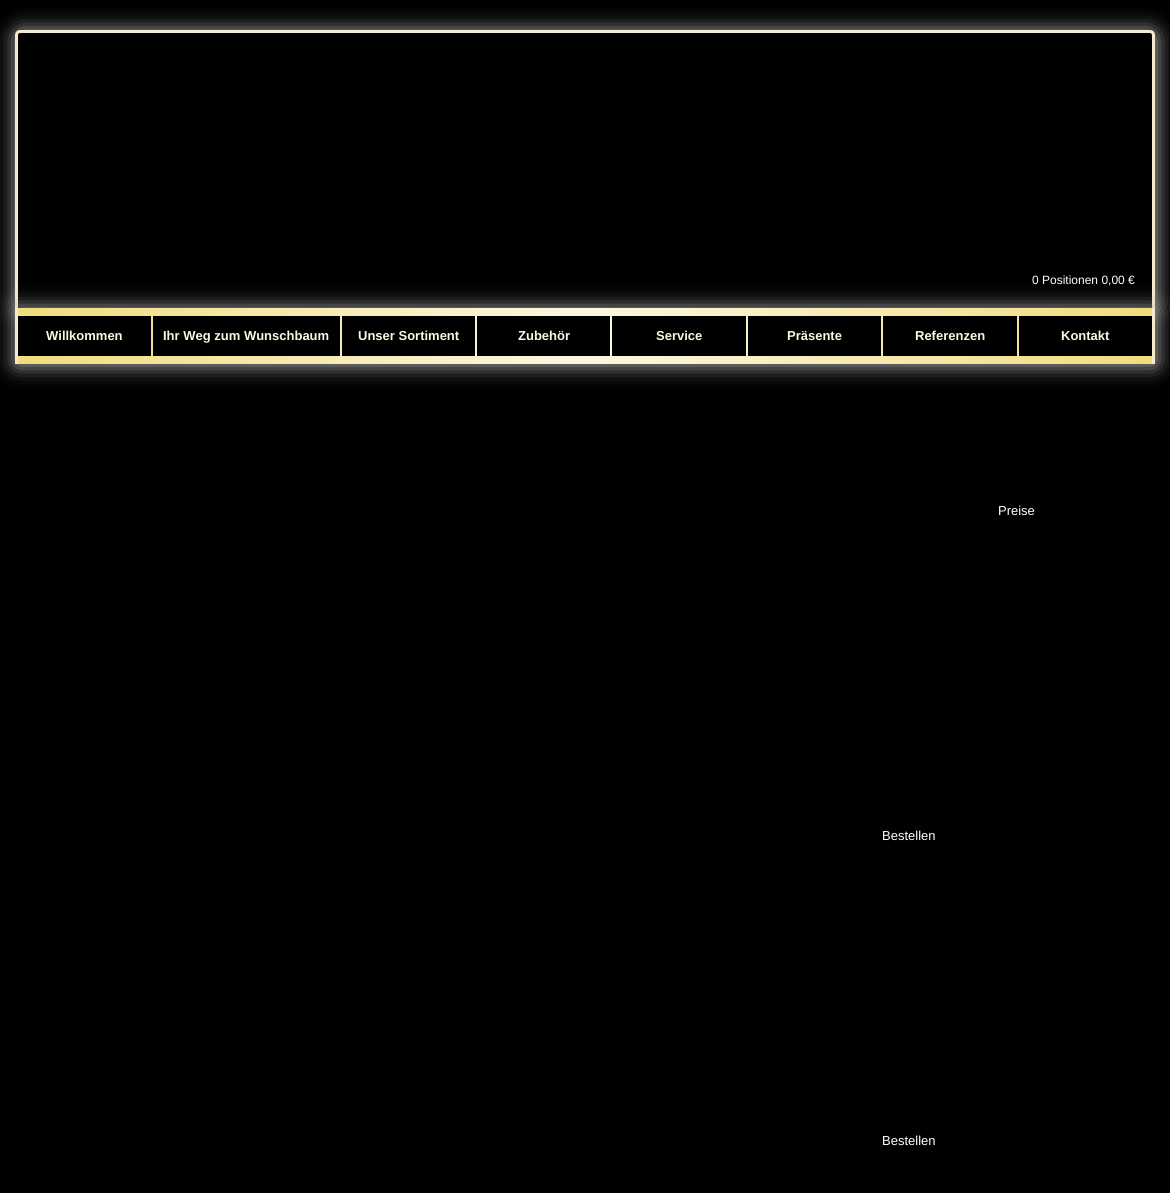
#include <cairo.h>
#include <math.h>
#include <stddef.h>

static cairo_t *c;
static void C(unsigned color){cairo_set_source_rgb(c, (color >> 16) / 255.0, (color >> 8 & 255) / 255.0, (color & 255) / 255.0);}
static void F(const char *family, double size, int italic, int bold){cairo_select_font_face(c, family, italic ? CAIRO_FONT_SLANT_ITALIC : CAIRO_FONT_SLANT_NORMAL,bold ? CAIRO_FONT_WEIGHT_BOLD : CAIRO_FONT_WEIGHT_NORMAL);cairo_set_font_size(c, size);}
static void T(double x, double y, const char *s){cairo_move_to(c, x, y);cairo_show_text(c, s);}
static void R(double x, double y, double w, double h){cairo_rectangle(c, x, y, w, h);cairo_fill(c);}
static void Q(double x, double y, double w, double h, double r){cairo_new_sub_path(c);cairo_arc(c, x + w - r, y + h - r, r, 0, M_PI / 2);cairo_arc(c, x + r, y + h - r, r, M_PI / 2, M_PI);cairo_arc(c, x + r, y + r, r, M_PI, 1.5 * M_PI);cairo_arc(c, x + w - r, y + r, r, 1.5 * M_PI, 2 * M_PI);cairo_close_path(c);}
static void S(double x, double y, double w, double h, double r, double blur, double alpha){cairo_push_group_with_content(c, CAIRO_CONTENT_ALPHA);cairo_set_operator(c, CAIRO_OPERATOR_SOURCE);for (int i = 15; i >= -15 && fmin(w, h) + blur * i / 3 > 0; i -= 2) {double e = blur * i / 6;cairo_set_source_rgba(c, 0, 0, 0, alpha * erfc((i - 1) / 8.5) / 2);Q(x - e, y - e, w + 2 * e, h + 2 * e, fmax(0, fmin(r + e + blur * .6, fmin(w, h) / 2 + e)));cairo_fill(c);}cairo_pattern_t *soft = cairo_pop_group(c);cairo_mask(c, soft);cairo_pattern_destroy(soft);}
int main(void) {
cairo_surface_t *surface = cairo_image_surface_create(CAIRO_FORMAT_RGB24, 1170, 1193);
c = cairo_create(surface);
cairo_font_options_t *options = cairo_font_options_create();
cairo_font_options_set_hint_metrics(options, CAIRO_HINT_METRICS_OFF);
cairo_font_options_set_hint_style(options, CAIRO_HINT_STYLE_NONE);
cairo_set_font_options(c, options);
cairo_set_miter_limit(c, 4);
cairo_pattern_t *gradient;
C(0x000000);
cairo_paint(c);
cairo_save(c);
cairo_set_fill_rule(c,CAIRO_FILL_RULE_EVEN_ODD);
cairo_new_path(c);
cairo_move_to(c,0,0);
cairo_line_to(c,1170,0);
cairo_line_to(c,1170,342);
cairo_line_to(c,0,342);
cairo_close_path(c);
cairo_move_to(c,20,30);
cairo_line_to(c,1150,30);
cairo_curve_to(c,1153,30,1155,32,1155,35);
cairo_line_to(c,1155,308);
cairo_line_to(c,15,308);
cairo_line_to(c,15,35);
cairo_curve_to(c,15,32,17,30,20,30);
cairo_close_path(c);
cairo_clip(c);
C(0xbababa);
S(16,31,1140,278,5,10.5,1);
cairo_restore(c);
C(0xf5ebca);
cairo_set_fill_rule(c,CAIRO_FILL_RULE_EVEN_ODD);
cairo_new_path(c);
cairo_move_to(c,20,30);
cairo_line_to(c,1150,30);
cairo_curve_to(c,1153,30,1155,32,1155,35);
cairo_line_to(c,1155,308);
cairo_line_to(c,15,308);
cairo_line_to(c,15,35);
cairo_curve_to(c,15,32,17,30,20,30);
cairo_close_path(c);
cairo_move_to(c,20,33);
cairo_line_to(c,1150,33);
cairo_curve_to(c,1151,33,1152,34,1152,35);
cairo_line_to(c,1152,308);
cairo_line_to(c,18,308);
cairo_line_to(c,18,35);
cairo_curve_to(c,18,34,19,33,20,33);
cairo_close_path(c);
cairo_fill(c);
C(0xbababa);
S(16,309,1140,56,0,10.5,1);
F("Liberation Sans",12,0,0);
C(0xffffff);
T(1032,284,"0 Positionen 0,00 €");
gradient = cairo_pattern_create_radial(585,336,0,585,336,568);
cairo_pattern_add_color_stop_rgba(gradient,0,0.988,0.973,0.886,1);
cairo_pattern_add_color_stop_rgba(gradient,1,0.945,0.863,0.494,1);
cairo_set_source(c,gradient);
cairo_pattern_destroy(gradient);
R(18,308,1134,56);
C(0xf5ebca);
R(1152,308,3,56);
R(15,308,3,56);
C(0x000000);
R(18,316,133,40);
F("Liberation Sans",13,0,1);
C(0xfcf7de);
T(46,340,"Willkommen");
C(0x000000);
R(153,316,187,40);
C(0xfcf7de);
T(163,340,"Ihr Weg zum Wunschbaum");
C(0x000000);
R(342,316,133,40);
C(0xfcf7de);
T(358,340,"Unser Sortiment");
C(0x000000);
R(477,316,133,40);
C(0xfcf7de);
T(518,340,"Zubehör");
C(0x000000);
R(612,316,134,40);
C(0xfcf7de);
T(656,340,"Service");
C(0x000000);
R(748,316,133,40);
C(0xfcf7de);
T(787,340,"Präsente");
C(0x000000);
R(883,316,134,40);
C(0xfcf7de);
T(915,340,"Referenzen");
C(0x000000);
R(1019,316,133,40);
C(0xfcf7de);
T(1061,340,"Kontakt");
F("Liberation Sans",13,0,0);
C(0xffffff);
T(998,515,"Preise");
T(882,840,"Bestellen");
T(882,1145,"Bestellen");
cairo_surface_write_to_png(surface, "o.png");
cairo_font_options_destroy(options);
cairo_destroy(c);
cairo_surface_destroy(surface);
return 0;
}
